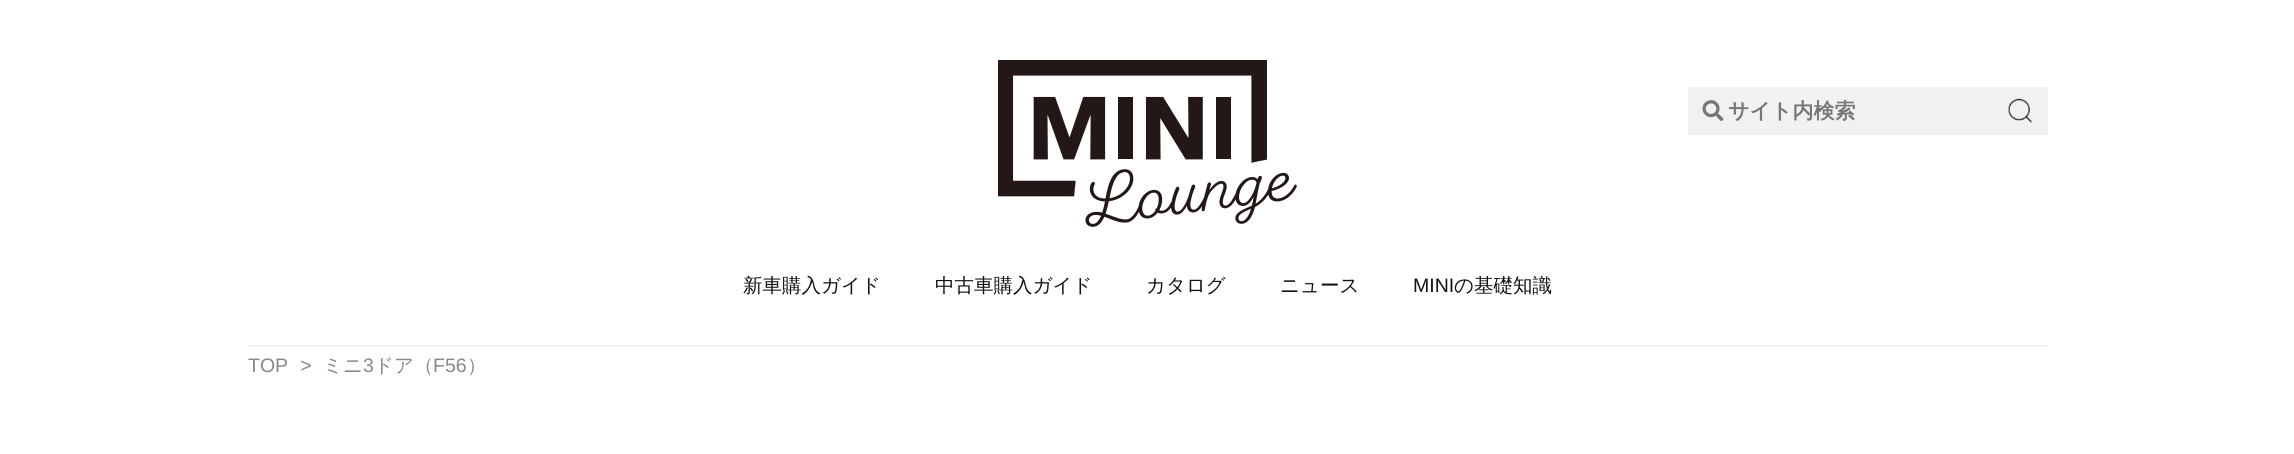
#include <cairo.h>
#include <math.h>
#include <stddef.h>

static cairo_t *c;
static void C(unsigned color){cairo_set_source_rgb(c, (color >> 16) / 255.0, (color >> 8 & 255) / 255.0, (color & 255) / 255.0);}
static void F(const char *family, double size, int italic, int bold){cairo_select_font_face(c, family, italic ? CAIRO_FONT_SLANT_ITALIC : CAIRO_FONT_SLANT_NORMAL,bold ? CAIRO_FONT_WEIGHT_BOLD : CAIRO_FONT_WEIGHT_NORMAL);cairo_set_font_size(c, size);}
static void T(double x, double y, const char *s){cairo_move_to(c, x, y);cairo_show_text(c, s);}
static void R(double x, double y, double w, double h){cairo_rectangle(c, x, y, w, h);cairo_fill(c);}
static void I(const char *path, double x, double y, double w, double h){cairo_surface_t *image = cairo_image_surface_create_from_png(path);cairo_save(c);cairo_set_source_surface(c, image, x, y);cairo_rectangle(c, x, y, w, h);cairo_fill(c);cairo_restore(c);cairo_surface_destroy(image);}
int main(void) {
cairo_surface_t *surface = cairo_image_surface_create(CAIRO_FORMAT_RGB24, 2294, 454);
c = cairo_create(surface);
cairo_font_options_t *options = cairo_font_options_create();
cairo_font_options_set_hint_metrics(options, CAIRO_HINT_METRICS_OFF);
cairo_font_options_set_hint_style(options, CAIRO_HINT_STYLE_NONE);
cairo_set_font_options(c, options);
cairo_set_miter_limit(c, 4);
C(0xffffff);
cairo_paint(c);
I("1.png",998,60,299,167);
C(0xf1f1f1);
R(1688,87,360,48);
I("2.png",1702,100,22,22);
F("WenQuanYi Zen Hei",21,0,1);
C(0x767676);
T(1728,118,"サイト内検索");
I("3.png",2008,98,24,25);
C(0xf1f1f1);
R(248,345,1800,2);
F("WenQuanYi Zen Hei Medium",19.5,0,0);
C(0x111111);
T(743,292,"新車購入ガイド");
T(935,292,"中古車購入ガイド");
T(1146,292,"カタログ");
T(1280,292,"ニュース");
F("Liberation Sans",19.5,0,0);
T(1413,292,"MINI");
F("WenQuanYi Zen Hei Medium",19.5,0,0);
T(1454,292,"の基礎知識");
F("Liberation Sans",19.5,0,0);
C(0x888888);
T(248,372,"TOP");
F("Liberation Sans",19.5,1,0);
T(300,372,">");
F("WenQuanYi Zen Hei Medium",19.5,0,0);
T(323,372,"ミニ");
F("Liberation Sans",19.5,0,0);
T(363,372,"3");
F("WenQuanYi Zen Hei Medium",19.5,0,0);
T(374,372,"ドア（");
F("Liberation Sans",19.5,0,0);
T(433,372,"F56");
F("WenQuanYi Zen Hei Medium",19.5,0,0);
T(467,372,"）");
cairo_surface_write_to_png(surface, "o.png");
cairo_font_options_destroy(options);
cairo_destroy(c);
cairo_surface_destroy(surface);
return 0;
}
